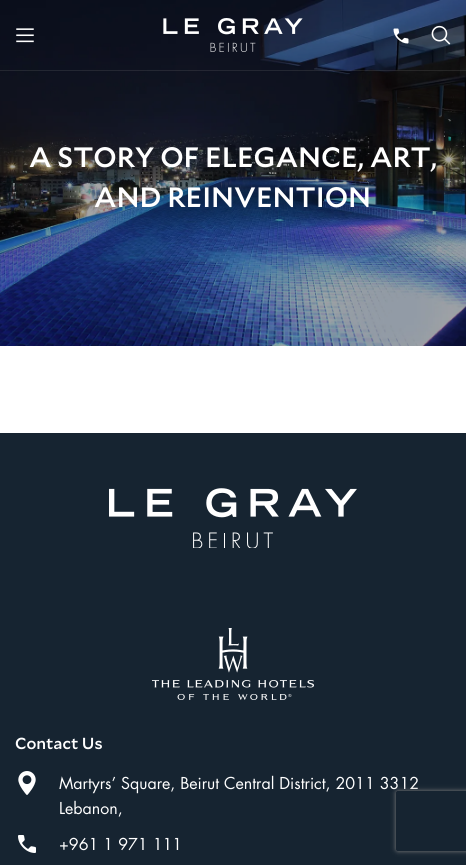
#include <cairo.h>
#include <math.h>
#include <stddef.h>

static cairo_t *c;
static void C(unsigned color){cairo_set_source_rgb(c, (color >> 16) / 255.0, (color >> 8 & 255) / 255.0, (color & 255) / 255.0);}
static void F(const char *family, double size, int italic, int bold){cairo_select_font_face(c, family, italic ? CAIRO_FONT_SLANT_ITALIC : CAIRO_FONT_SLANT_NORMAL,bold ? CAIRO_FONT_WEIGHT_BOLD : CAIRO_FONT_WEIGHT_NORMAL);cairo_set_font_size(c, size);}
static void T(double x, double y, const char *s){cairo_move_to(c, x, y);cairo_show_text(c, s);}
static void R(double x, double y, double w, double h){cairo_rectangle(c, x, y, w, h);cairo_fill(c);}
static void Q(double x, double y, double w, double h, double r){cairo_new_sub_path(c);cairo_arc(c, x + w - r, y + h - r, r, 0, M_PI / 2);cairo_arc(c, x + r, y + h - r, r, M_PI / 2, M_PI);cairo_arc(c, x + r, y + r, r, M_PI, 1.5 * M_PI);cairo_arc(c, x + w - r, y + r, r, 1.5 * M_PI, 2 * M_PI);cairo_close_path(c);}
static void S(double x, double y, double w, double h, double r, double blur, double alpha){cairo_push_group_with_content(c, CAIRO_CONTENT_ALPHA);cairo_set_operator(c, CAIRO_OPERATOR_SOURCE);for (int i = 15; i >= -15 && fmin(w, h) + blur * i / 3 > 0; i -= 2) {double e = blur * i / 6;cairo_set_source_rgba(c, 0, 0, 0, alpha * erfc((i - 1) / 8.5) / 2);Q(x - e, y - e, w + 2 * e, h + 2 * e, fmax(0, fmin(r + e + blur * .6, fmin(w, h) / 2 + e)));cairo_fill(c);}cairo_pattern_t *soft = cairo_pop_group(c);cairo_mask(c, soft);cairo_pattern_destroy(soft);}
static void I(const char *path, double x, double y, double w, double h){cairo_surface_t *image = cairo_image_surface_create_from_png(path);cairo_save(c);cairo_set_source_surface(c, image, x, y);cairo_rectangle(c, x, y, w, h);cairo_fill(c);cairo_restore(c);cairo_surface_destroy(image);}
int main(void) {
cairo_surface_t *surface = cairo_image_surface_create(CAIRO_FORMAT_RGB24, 466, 865);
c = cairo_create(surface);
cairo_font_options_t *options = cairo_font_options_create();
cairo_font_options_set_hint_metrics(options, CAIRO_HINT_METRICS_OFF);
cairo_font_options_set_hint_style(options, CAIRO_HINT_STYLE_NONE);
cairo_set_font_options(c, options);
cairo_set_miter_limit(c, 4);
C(0xffffff);
cairo_paint(c);
I("5.png",0,0,466,346);
cairo_set_source_rgba(c,0.506,0.506,0.506,0.2);
R(0,70,466,1);
I("1.png",16,28,18,15);
I("2.png",163,18,140,34);
I("3.png",393,28,16,16);
I("4.png",431,25,20,20);
F("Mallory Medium",28,0,0);
C(0xffffff);
T(29,167,"A STORY OF ELEGANCE, ART,");
T(94,207,"AND REINVENTION");
C(0x162431);
R(0,433,466,432);
I("6.png",109,488,248,60);
I("7.png",152,628,162,72);
F("Mallory Medium",16,0,0);
C(0xffffff);
T(15,749,"Contact Us");
I("8.png",18,771,18,24);
F("Futura",16,0,0);
T(59,789,"Martyrs’ Square, Beirut Central District, 2011 3312");
T(59,814,"Lebanon,");
I("9.png",18,835,18,18);
T(59,850,"+961 1 971 111");
cairo_save(c);
cairo_set_fill_rule(c,CAIRO_FILL_RULE_EVEN_ODD);
cairo_new_path(c);
cairo_move_to(c,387,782);
cairo_line_to(c,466,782);
cairo_line_to(c,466,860);
cairo_line_to(c,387,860);
cairo_close_path(c);
cairo_move_to(c,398,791);
cairo_line_to(c,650,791);
cairo_curve_to(c,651,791,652,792,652,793);
cairo_line_to(c,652,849);
cairo_curve_to(c,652,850,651,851,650,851);
cairo_line_to(c,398,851);
cairo_curve_to(c,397,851,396,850,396,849);
cairo_line_to(c,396,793);
cairo_curve_to(c,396,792,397,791,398,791);
cairo_close_path(c);
cairo_clip(c);
C(0x808080);
S(396,791,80,60,2,2.5,1);
cairo_restore(c);
cairo_surface_write_to_png(surface, "o.png");
cairo_font_options_destroy(options);
cairo_destroy(c);
cairo_surface_destroy(surface);
return 0;
}
